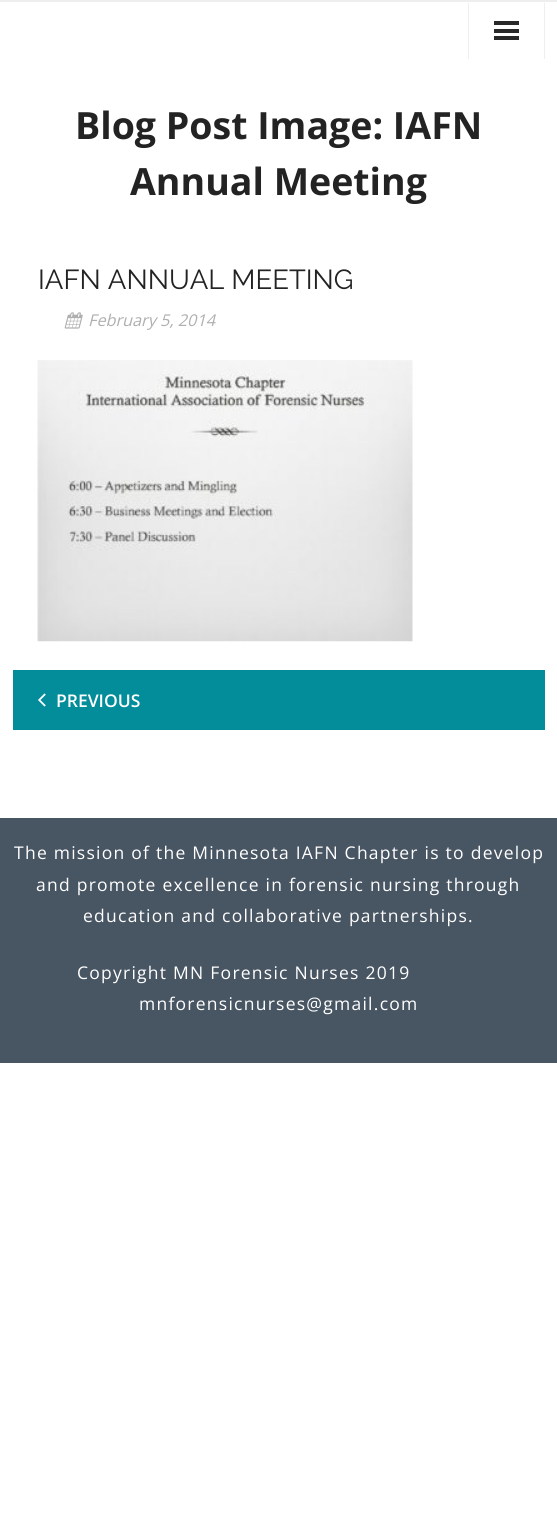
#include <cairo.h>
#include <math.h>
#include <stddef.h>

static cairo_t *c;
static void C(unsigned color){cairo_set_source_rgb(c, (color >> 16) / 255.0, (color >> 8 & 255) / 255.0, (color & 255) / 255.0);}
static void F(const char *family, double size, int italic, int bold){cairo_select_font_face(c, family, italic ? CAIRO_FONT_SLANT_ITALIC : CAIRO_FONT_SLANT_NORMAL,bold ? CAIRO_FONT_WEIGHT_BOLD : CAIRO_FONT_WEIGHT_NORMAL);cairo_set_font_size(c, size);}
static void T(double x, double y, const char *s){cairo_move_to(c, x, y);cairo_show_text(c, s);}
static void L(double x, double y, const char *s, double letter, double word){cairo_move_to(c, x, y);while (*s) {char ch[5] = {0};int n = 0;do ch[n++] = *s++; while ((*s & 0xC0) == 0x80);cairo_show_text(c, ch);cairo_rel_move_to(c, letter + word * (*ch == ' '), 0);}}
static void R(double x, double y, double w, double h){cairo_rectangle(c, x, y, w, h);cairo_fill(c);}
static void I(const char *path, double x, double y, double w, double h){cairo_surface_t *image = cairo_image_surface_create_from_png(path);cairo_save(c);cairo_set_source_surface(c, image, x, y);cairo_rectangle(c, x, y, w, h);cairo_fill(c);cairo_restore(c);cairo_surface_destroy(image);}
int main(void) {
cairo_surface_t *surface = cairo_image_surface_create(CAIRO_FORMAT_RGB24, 557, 1524);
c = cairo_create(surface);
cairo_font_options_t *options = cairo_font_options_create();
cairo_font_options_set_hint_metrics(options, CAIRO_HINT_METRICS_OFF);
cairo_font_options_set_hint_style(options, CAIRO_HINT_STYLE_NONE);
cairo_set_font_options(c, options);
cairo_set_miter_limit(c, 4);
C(0xffffff);
cairo_paint(c);
C(0xeeeeee);
R(0,0,557,2);
R(544,3,1,56);
R(468,3,1,56);
C(0x292929);
R(494,21,25,4);
R(494,29,25,4);
R(494,36,25,4);
F("Open Sans",37.5,0,1);
C(0x232323);
T(75,139,"Blog Post Image: IAFN");
T(130,195,"Annual Meeting");
F("Raleway",27.5,0,0);
T(38,289,"IAFN ANNUAL MEETING");
I("1.png",64,312,19,17);
F("Open Sans",16.25,1,0);
C(0xafafaf);
T(88,326,"February 5, 2014");
I("2.png",37,360,376,282);
C(0x038c9a);
R(13,670,532,60);
I("3.png",38,693,8,14);
F("Open Sans SemiBold",17.5,0,0);
C(0xffffff);
T(56,707,"PREVIOUS");
C(0x485563);
R(0,818,557,245);
F("Open Sans",17.5,0,0);
C(0xffffff);
L(14,859,"The mission of the Minnesota IAFN Chapter is to develop",1.25,0);
L(36,891,"and promote excellence in forensic nursing through",1.25,0);
L(83,922,"education and collaborative partnerships.",1.25,0);
L(77,979,"Copyright MN Forensic Nurses 2019",1.25,0);
L(139,1010,"mnforensicnurses@gmail.com",1.25,0);
cairo_surface_write_to_png(surface, "o.png");
cairo_font_options_destroy(options);
cairo_destroy(c);
cairo_surface_destroy(surface);
return 0;
}
